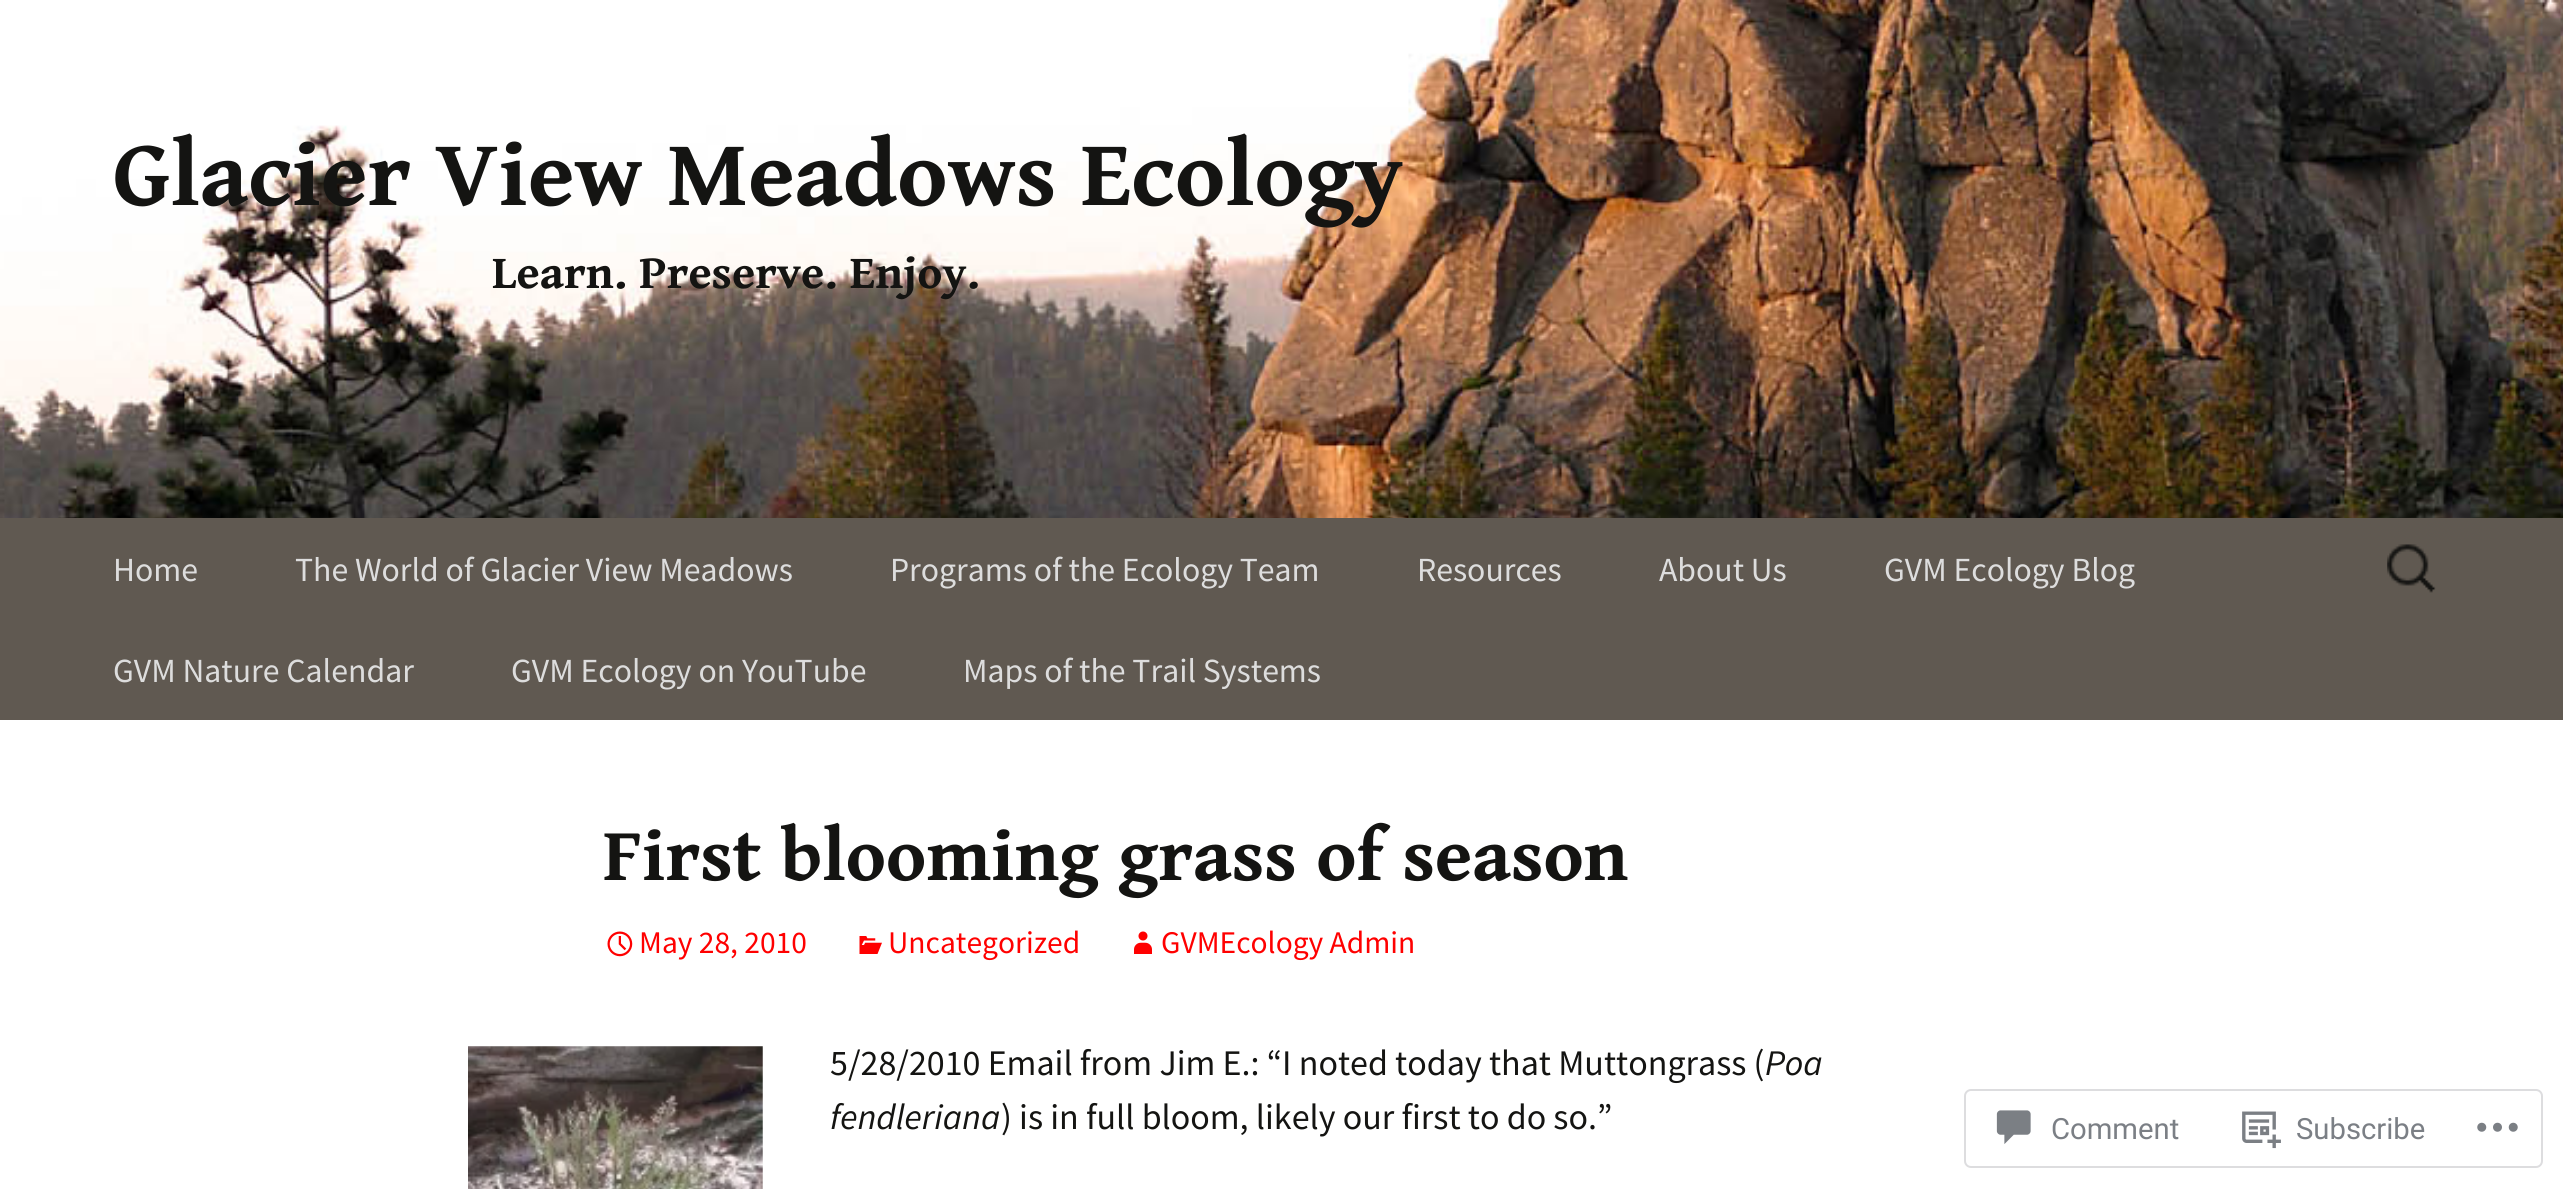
#include <cairo.h>
#include <math.h>
#include <stddef.h>

static cairo_t *c;
static void C(unsigned color){cairo_set_source_rgb(c, (color >> 16) / 255.0, (color >> 8 & 255) / 255.0, (color & 255) / 255.0);}
static void F(const char *family, double size, int italic, int bold){cairo_select_font_face(c, family, italic ? CAIRO_FONT_SLANT_ITALIC : CAIRO_FONT_SLANT_NORMAL,bold ? CAIRO_FONT_WEIGHT_BOLD : CAIRO_FONT_WEIGHT_NORMAL);cairo_set_font_size(c, size);}
static void T(double x, double y, const char *s){cairo_move_to(c, x, y);cairo_show_text(c, s);}
static void R(double x, double y, double w, double h){cairo_rectangle(c, x, y, w, h);cairo_fill(c);}
static void Q(double x, double y, double w, double h, double r){cairo_new_sub_path(c);cairo_arc(c, x + w - r, y + h - r, r, 0, M_PI / 2);cairo_arc(c, x + r, y + h - r, r, M_PI / 2, M_PI);cairo_arc(c, x + r, y + r, r, M_PI, 1.5 * M_PI);cairo_arc(c, x + w - r, y + r, r, 1.5 * M_PI, 2 * M_PI);cairo_close_path(c);}
static void I(const char *path, double x, double y, double w, double h){cairo_surface_t *image = cairo_image_surface_create_from_png(path);cairo_save(c);cairo_set_source_surface(c, image, x, y);cairo_rectangle(c, x, y, w, h);cairo_fill(c);cairo_restore(c);cairo_surface_destroy(image);}
int main(void) {
cairo_surface_t *surface = cairo_image_surface_create(CAIRO_FORMAT_RGB24, 2563, 1189);
c = cairo_create(surface);
cairo_font_options_t *options = cairo_font_options_create();
cairo_font_options_set_hint_metrics(options, CAIRO_HINT_METRICS_OFF);
cairo_font_options_set_hint_style(options, CAIRO_HINT_STYLE_NONE);
cairo_set_font_options(c, options);
cairo_set_miter_limit(c, 4);
C(0xffffff);
cairo_paint(c);
I("1.png",0,0,2563,518);
F("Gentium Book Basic",94.5,0,1);
C(0x141412);
T(113,205,"Glacier View Meadows Ecology");
F("Gentium Book Basic",47.25,0,1);
T(492,288,"Learn. Preserve. Enjoy.");
C(0x605951);
R(0,518,2563,202);
F("Source Sans Pro",33.75,0,0);
C(0xdddddd);
T(113,581,"Home");
T(295,581,"The World of Glacier View Meadows");
T(890,581,"Programs of the Ecology Team");
T(1417,581,"Resources");
T(1659,581,"About Us");
T(1884,581,"GVM Ecology Blog");
T(113,682,"GVM Nature Calendar");
T(511,682,"GVM Ecology on YouTube");
T(963,682,"Maps of the Trail Systems");
I("2.png",2387,544,49,49);
F("Gentium Book Basic",75.6,0,1);
C(0x141412);
T(603,880,"First blooming grass of season");
I("3.png",607,931,26,26);
F("Source Sans Pro",31.5,0,0);
C(0xff0000);
T(639,953,"May 28, 2010");
I("4.png",859,936,23,18);
T(888,953,"Uncategorized");
I("5.png",1134,931,18,23);
T(1161,953,"GVMEcology Admin");
I("6.png",468,1046,295,143);
F("Source Sans Pro",36,0,0);
C(0x141412);
T(830,1075,"5/28/2010 Email from Jim E.: “I noted today that Muttongrass (");
F("Source Sans Pro",36,1,0);
T(1765,1075,"Poa");
T(830,1129,"fendleriana");
F("Source Sans Pro",36,0,0);
T(1001,1129,") is in full bloom, likely our first to do so.”");
Q(1965,1090,577,77,6);
C(0xdddddf);
cairo_stroke(c);
I("7.png",1996,1110,35,34);
F("Roboto",29.25,0,0);
C(0x7b7f85);
T(2051,1139,"Comment");
I("8.png",2242,1111,39,38);
T(2296,1139,"Subscribe");
I("9.png",2477,1122,41,10);
cairo_surface_write_to_png(surface, "o.png");
cairo_font_options_destroy(options);
cairo_destroy(c);
cairo_surface_destroy(surface);
return 0;
}
